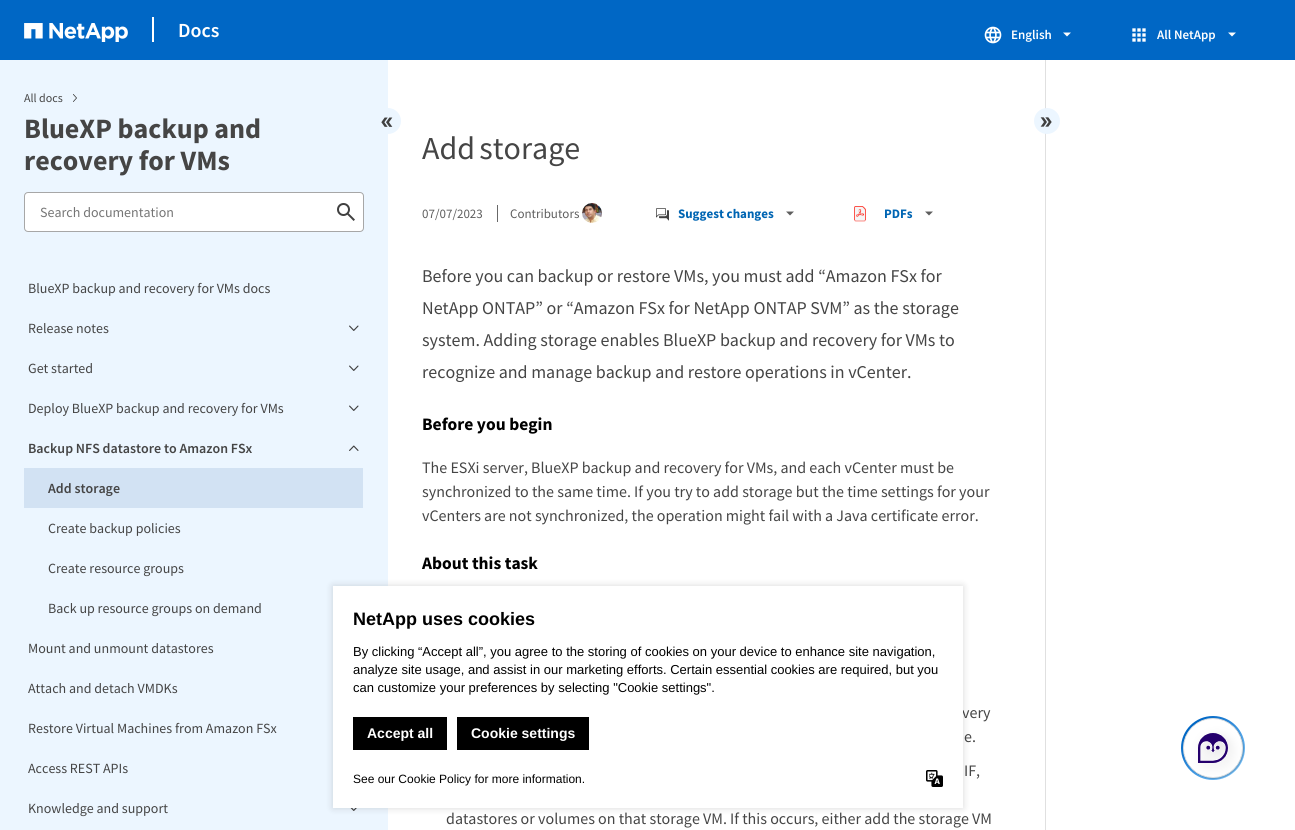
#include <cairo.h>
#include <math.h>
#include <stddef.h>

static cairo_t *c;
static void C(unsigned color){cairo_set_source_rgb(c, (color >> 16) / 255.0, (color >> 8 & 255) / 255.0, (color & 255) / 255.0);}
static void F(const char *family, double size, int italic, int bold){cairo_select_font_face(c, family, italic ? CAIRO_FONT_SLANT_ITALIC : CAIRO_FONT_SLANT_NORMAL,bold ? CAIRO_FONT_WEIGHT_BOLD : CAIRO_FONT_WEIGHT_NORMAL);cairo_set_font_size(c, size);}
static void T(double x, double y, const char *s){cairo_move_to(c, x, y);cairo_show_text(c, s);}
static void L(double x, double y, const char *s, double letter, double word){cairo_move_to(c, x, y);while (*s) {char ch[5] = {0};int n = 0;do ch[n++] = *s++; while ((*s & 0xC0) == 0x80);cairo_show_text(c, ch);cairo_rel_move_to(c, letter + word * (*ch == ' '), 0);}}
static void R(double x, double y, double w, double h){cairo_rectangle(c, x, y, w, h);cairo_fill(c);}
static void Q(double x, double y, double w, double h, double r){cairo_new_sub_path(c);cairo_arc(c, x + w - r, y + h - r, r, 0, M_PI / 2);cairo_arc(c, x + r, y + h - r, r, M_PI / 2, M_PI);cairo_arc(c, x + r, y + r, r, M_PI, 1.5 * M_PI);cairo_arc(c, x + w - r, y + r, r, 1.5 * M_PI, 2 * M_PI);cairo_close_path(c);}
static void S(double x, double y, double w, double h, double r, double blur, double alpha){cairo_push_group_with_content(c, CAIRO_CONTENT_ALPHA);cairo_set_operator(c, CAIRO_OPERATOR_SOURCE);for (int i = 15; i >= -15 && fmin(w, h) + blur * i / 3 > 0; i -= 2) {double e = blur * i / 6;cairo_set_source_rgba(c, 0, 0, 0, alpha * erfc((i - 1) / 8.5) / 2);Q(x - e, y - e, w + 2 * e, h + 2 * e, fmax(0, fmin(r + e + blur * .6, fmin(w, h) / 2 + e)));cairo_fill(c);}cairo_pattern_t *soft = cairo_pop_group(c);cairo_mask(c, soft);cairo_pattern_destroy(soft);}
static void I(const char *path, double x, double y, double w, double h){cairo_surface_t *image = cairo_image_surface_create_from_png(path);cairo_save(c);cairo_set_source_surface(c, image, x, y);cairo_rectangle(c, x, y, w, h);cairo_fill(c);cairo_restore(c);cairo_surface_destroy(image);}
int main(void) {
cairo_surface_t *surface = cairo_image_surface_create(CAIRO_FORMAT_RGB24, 1295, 830);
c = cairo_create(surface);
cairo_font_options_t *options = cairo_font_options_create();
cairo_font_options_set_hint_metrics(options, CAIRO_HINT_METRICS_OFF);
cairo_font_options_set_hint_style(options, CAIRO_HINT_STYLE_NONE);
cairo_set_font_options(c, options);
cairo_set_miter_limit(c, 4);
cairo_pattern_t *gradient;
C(0xffffff);
cairo_paint(c);
C(0x0067c5);
R(0,0,1295,60);
I("1.png",24,23,104,19);
C(0xffffff);
R(152,17,2,25);
F("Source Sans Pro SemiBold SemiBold",20,0,0);
T(178,37,"Docs");
I("2.png",984,26,18,18);
F("Source Sans Pro SemiBold SemiBold",13,0,0);
T(1011,39,"English");
C(0xfdfdfd);
cairo_new_path(c);
cairo_move_to(c,1067,36.5);
cairo_line_to(c,1063,32.5);
cairo_line_to(c,1071,32.5);
cairo_close_path(c);
cairo_fill(c);
I("3.png",1132,28,14,14);
C(0xffffff);
T(1157,39,"All NetApp");
C(0xfdfdfd);
cairo_new_path(c);
cairo_move_to(c,1232,36.5);
cairo_line_to(c,1228,32.5);
cairo_line_to(c,1236,32.5);
cairo_close_path(c);
cairo_fill(c);
C(0xecf6ff);
R(0,60,388,770);
F("Source Sans Pro",12,0,0);
C(0x454545);
T(24,102,"All docs");
I("4.png",73,94,4,8);
F("Source Sans Pro",28,0,1);
T(24,138,"BlueXP backup and");
T(24,170,"recovery for VMs");
C(0xecf6ff);
cairo_new_path(c);
cairo_arc(c,388,121,13,0,2 * M_PI);
cairo_fill(c);
I("5.png",381,117,12,10);
C(0xffffff);
Q(24.5,192.5,339,39,3.5);
cairo_fill_preserve(c);
C(0xa7a7a7);
cairo_set_line_width(c,1);
cairo_stroke(c);
F("Source Sans Pro",14,0,0);
C(0x757575);
T(40,217,"Search documentation");
I("6.png",337,203,18,18);
C(0x454545);
T(28,293,"BlueXP backup and recovery for VMs docs");
T(28,333,"Release notes");
I("7.png",349,325,10,6);
T(28,373,"Get started");
I("7.png",349,365,10,6);
T(28,413,"Deploy BlueXP backup and recovery for VMs");
I("7.png",349,405,10,6);
F("Source Sans Pro SemiBold SemiBold",14,0,0);
T(28,453,"Backup NFS datastore to Amazon FSx");
I("8.png",349,445,10,6);
C(0xd2e2f3);
R(24,468,339,40);
C(0x454545);
T(48,493,"Add storage");
F("Source Sans Pro",14,0,0);
T(48,533,"Create backup policies");
T(48,573,"Create resource groups");
T(48,613,"Back up resource groups on demand");
T(28,653,"Mount and unmount datastores");
T(28,693,"Attach and detach VMDKs");
T(28,733,"Restore Virtual Machines from Amazon FSx");
T(28,773,"Access REST APIs");
T(28,813,"Knowledge and support");
I("9.png",350,808,7,3);
F("Source Sans Pro",32,0,0);
L(422,159,"Add storage",0,-2);
F("Source Sans Pro",13,0,0);
C(0x5e5e5e);
T(422,218,"07/07/2023");
C(0x686868);
R(497,205,1,17);
C(0x5e5e5e);
T(510,218,"Contributors");
I("10.png",582,203,20,20);
I("11.png",656,208,13,13);
F("Source Sans Pro",13,0,1);
C(0x0065b3);
T(678,218,"Suggest changes");
C(0x5e5e5e);
cairo_new_path(c);
cairo_move_to(c,790,215.5);
cairo_line_to(c,786,211.5);
cairo_line_to(c,794,211.5);
cairo_close_path(c);
cairo_fill(c);
I("12.png",854,206,12,16);
C(0x0065b3);
T(884,218,"PDFs");
C(0x5e5e5e);
cairo_new_path(c);
cairo_move_to(c,929,215.5);
cairo_line_to(c,925,211.5);
cairo_line_to(c,933,211.5);
cairo_close_path(c);
cairo_fill(c);
F("Source Sans Pro",18,0,0);
C(0x454545);
T(422,282,"Before you can backup or restore VMs, you must add “Amazon FSx for");
T(422,314,"NetApp ONTAP” or “Amazon FSx for NetApp ONTAP SVM” as the storage");
T(422,346,"system. Adding storage enables BlueXP backup and recovery for VMs to");
T(422,378,"recognize and manage backup and restore operations in vCenter.");
F("Source Sans Pro",17.5,0,1);
C(0x000000);
T(422,430,"Before you begin");
F("Source Sans Pro",16,0,0);
C(0x454545);
T(422,473,"The ESXi server, BlueXP backup and recovery for VMs, and each vCenter must be");
T(422,497,"synchronized to the same time. If you try to add storage but the time settings for your");
T(422,521,"vCenters are not synchronized, the operation might fail with a Java certificate error.");
F("Source Sans Pro",17.5,0,1);
C(0x000000);
T(422,569,"About this task");
F("Source Sans Pro",16,0,0);
C(0x454545);
T(962,718,"very");
T(964,742,"e.");
T(964,776,"IF,");
T(446,824,"datastores or volumes on that storage VM. If this occurs, either add the storage VM");
C(0xe0e0e0);
R(1045,60,1,770);
C(0xecf6ff);
cairo_new_path(c);
cairo_arc(c,1047,121,13,0,2 * M_PI);
cairo_fill(c);
I("13.png",1040,117,12,10);
gradient = cairo_pattern_create_linear(1181,716,1245,780);
cairo_pattern_add_color_stop_rgba(gradient,.18,0,0.404,0.773,1);
cairo_pattern_add_color_stop_rgba(gradient,.89,0.478,0.765,0.98,1);
cairo_set_source(c,gradient);
cairo_pattern_destroy(gradient);
cairo_arc(c,1213,748,32,0,2 * M_PI);
cairo_fill(c);
I("14.png",1183,718,61,61);
C(0x000000);
S(333,586,630,222,0,4,.15);
C(0xffffff);
R(333,586,630,222);
F("Liberation Sans",18,0,1);
C(0x000000);
T(353,625,"NetApp uses cookies");
F("Liberation Sans",13,0,0);
T(353,656,"By clicking “Accept all”, you agree to the storing of cookies on your device to enhance site navigation,");
T(353,674,"analyze site usage, and assist in our marketing efforts. Certain essential cookies are required, but you");
T(353,692,"can customize your preferences by selecting \"Cookie settings\".");
R(353,717,94,33);
F("Liberation Sans",14,0,1);
C(0xffffff);
T(367,738,"Accept all");
C(0x000000);
R(457,717,132,33);
C(0xffffff);
T(471,738,"Cookie settings");
F("Liberation Sans",12,0,0);
C(0x000000);
T(353,783,"See our Cookie Policy for more information.");
I("15.png",926,770,17,17);
cairo_surface_write_to_png(surface, "o.png");
cairo_font_options_destroy(options);
cairo_destroy(c);
cairo_surface_destroy(surface);
return 0;
}
